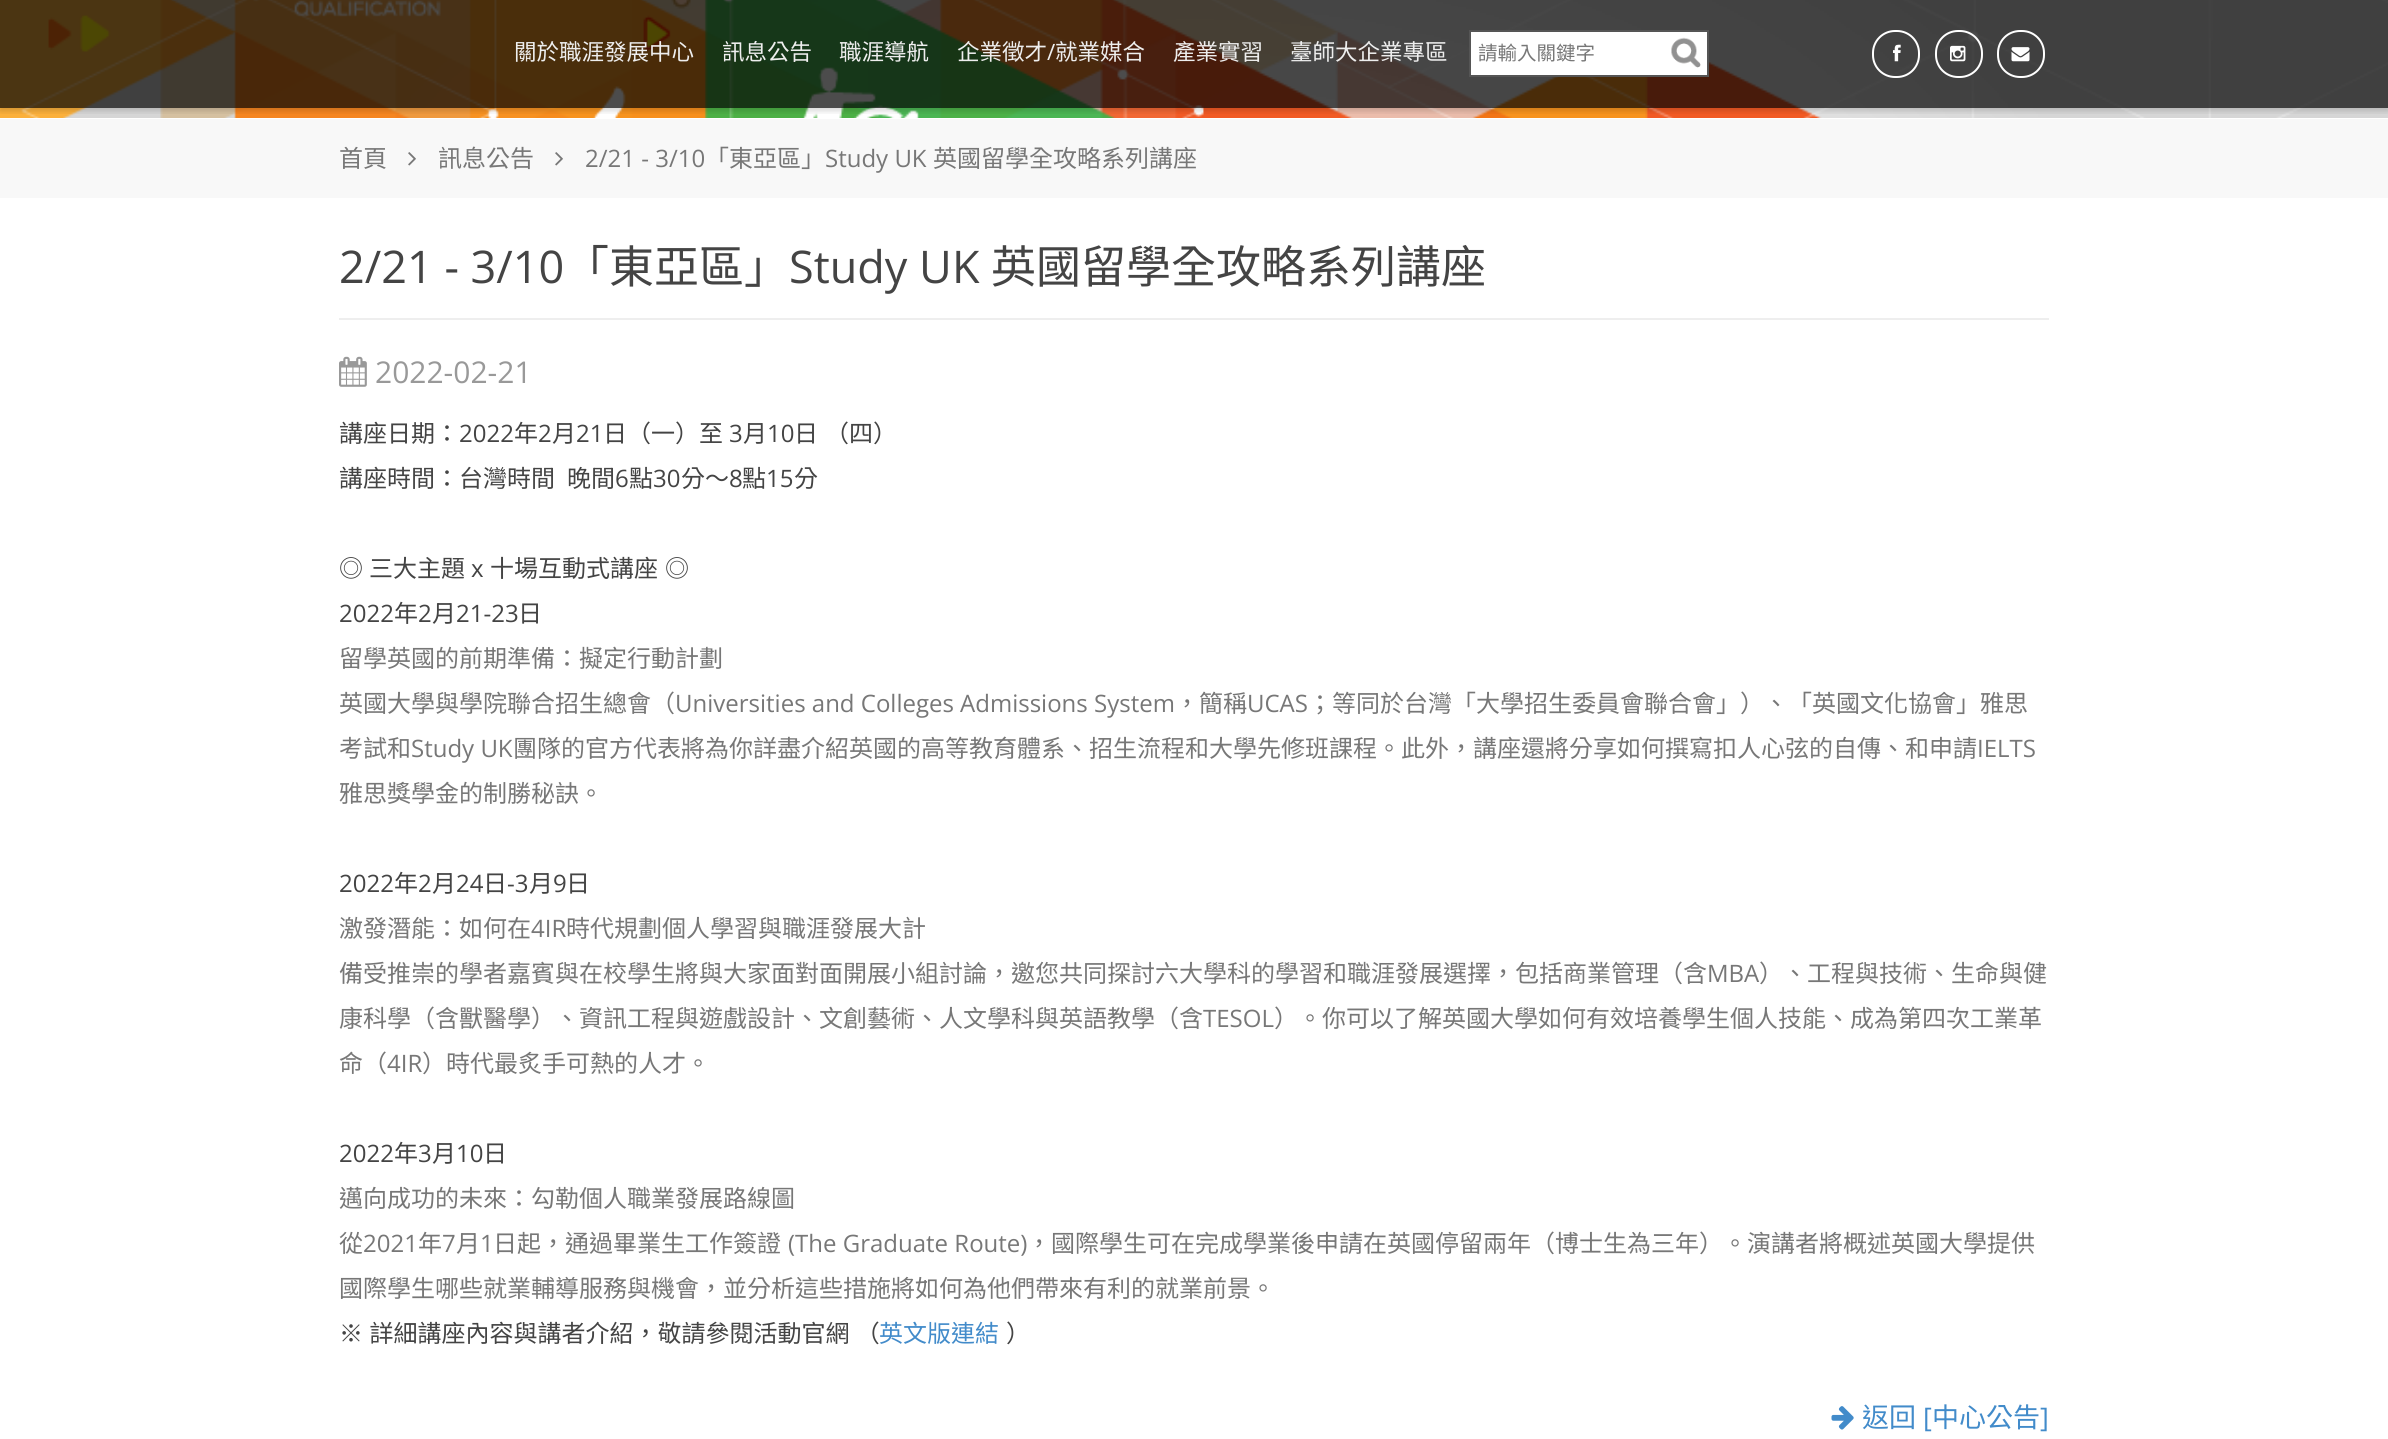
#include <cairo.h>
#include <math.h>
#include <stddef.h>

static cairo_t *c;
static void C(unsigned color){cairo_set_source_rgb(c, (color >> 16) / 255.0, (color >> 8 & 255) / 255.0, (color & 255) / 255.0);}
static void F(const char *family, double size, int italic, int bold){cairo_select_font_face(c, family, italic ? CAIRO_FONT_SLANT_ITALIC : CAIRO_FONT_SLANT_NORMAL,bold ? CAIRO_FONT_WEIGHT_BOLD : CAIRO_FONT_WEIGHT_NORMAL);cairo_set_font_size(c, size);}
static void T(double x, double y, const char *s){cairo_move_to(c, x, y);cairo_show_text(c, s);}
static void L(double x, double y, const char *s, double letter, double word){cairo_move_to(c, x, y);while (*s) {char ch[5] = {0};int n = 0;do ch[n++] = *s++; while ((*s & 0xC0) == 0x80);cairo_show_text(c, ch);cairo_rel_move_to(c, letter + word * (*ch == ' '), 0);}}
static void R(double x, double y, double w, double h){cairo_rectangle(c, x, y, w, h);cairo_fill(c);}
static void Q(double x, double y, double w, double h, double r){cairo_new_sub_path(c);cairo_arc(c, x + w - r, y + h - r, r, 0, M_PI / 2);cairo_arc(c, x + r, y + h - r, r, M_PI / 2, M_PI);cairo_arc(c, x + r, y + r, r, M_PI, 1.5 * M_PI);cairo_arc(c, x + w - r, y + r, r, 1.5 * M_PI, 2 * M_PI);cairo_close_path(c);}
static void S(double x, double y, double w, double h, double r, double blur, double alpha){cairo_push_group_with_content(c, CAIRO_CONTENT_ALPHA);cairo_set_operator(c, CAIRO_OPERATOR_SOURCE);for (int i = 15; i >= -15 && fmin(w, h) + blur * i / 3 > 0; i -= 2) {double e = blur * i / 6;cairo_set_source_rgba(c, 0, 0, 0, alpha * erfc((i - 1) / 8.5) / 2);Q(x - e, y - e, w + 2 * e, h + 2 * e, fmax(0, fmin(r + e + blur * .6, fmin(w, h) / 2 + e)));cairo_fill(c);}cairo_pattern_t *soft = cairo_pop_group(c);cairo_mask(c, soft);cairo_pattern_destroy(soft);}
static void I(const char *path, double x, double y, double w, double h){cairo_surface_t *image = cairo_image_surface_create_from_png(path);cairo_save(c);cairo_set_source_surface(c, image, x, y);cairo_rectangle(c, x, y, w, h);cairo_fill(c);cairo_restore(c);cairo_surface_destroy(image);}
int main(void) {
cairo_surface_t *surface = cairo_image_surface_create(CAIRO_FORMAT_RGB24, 2388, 1439);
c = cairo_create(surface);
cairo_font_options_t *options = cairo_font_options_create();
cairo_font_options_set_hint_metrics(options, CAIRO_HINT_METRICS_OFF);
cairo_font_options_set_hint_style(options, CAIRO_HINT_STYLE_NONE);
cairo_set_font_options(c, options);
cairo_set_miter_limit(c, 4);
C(0xffffff);
cairo_paint(c);
I("1.png",0,0,2388,118);
C(0xf8f8f8);
R(0,119,2388,79);
cairo_save(c);
cairo_rectangle(c,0,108,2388,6);
cairo_clip(c);
C(0x010101);
S(0,3,2388,108,0,3,.15);
cairo_restore(c);
F("Noto Sans TC Thin",22.5,0,0);
C(0xeeeeee);
T(514,60,"關於職涯發展中心");
T(722,60,"訊息公告");
T(839,60,"職涯導航");
T(957,60,"企業徵才");
F("Open Sans",22.5,0,0);
T(1047,60,"/");
F("Noto Sans TC Thin",22.5,0,0);
T(1055,60,"就業媒合");
T(1173,60,"產業實習");
T(1290,60,"臺師大企業專區");
C(0xffffff);
R(1471,32,236,43);
I("2.png",1671,37,30,31);
cairo_rectangle(c,1470,31,238,45);
C(0x555555);
cairo_stroke(c);
F("Noto Sans TC Thin",19.5,0,0);
C(0x777777);
T(1478,60,"請輸入關鍵字");
Q(1873,31,46,46,22);
C(0xffffff);
cairo_stroke(c);
I("3.png",1893,44,8,18);
Q(1936,31,46,46,22);
cairo_stroke(c);
I("4.png",1950,45,16,17);
Q(1998,31,46,46,22);
cairo_stroke(c);
I("5.png",2011,47,19,15);
F("Noto Sans TC Thin",24,0,0);
C(0x777777);
T(339,167,"首頁");
I("6.png",408,152,8,14);
T(438,167,"訊息公告");
I("6.png",555,152,8,14);
F("Open Sans",24,0,0);
T(585,167,"2/21 - 3/10");
F("Noto Sans TC Thin",24,0,0);
T(705,167,"「東亞區」");
F("Open Sans",24,0,0);
T(825,167,"Study UK");
F("Noto Sans TC Thin",24,0,0);
T(933,167,"英國留學全攻略系列講座");
C(0xeeeeee);
R(339,318,1710,2);
F("Open Sans",45,0,0);
C(0x444444);
T(339,283,"2/21 - 3/10");
F("Noto Sans TC Thin",45,0,0);
T(564,283,"「東亞區」");
F("Open Sans",45,0,0);
T(789,283,"Study UK");
F("Noto Sans TC Thin",45,0,0);
T(991,283,"英國留學全攻略系列講座");
I("7.png",339,356,28,31);
F("Open Sans",30,0,0);
C(0x999999);
T(375,383,"2022-02-21");
F("Noto Sans TC Thin",24,0,0);
C(0x444444);
T(339,442,"講座日期：");
F("Open Sans",24,0,0);
T(459,442,"2022");
F("Noto Sans TC Thin",24,0,0);
T(514,442,"年");
F("Open Sans",24,0,0);
T(538,442,"2");
F("Noto Sans TC Thin",24,0,0);
T(552,442,"月");
F("Open Sans",24,0,0);
T(576,442,"21");
F("Noto Sans TC Thin",24,0,0);
T(603,442,"日（一）至");
F("Open Sans",24,0,0);
T(729,442,"3");
F("Noto Sans TC Thin",24,0,0);
T(743,442,"月");
F("Open Sans",24,0,0);
T(767,442,"10");
F("Noto Sans TC Thin",24,0,0);
T(794,442,"日");
T(825,442,"（四）");
T(339,487,"講座時間：台灣時間");
T(567,487,"晚間");
F("Open Sans",24,0,0);
T(615,487,"6");
F("Noto Sans TC Thin",24,0,0);
T(629,487,"點");
F("Open Sans",24,0,0);
T(653,487,"30");
F("Noto Sans TC Thin",24,0,0);
T(681,487,"分～");
F("Open Sans",24,0,0);
T(729,487,"8");
F("Noto Sans TC Thin",24,0,0);
T(742,487,"點");
F("Open Sans",24,0,0);
T(766,487,"15");
F("Noto Sans TC Thin",24,0,0);
T(794,487,"分");
T(339,577,"◎");
T(369,577,"三大主題");
F("Open Sans",24,0,0);
T(471,577,"x");
F("Noto Sans TC Thin",24,0,0);
T(490,577,"十場互動式講座");
T(665,577,"◎");
F("Open Sans",24,0,0);
T(339,622,"2022");
F("Noto Sans TC Thin",24,0,0);
T(394,622,"年");
F("Open Sans",24,0,0);
T(418,622,"2");
F("Noto Sans TC Thin",24,0,0);
T(432,622,"月");
F("Open Sans",24,0,0);
T(456,622,"21-23");
F("Noto Sans TC Thin",24,0,0);
T(518,622,"日");
C(0x777777);
T(339,667,"留學英國的前期準備：擬定行動計劃");
T(339,712,"英國大學與學院聯合招生總會（");
F("Open Sans",24,0,0);
T(675,712,"Universities and Colleges Admissions System");
F("Noto Sans TC Thin",24,0,0);
T(1175,712,"，簡稱");
F("Open Sans",24,0,0);
T(1247,712,"UCAS");
F("Noto Sans TC Thin",24,0,0);
T(1308,712,"；等同於台灣「大學招生委員會聯合會」）、「英國文化協會」雅思");
T(339,757,"考試和");
F("Open Sans",24,0,0);
T(411,757,"Study UK");
F("Noto Sans TC Thin",24,0,0);
T(513,757,"團隊的官方代表將為你詳盡介紹英國的高等教育體系、招生流程和大學先修班課程。此外，講座還將分享如何撰寫扣人心弦的自傳、和申請");
F("Open Sans",24,0,0);
T(1977,757,"IELTS");
F("Noto Sans TC Thin",24,0,0);
T(339,802,"雅思獎學金的制勝秘訣。");
F("Open Sans",24,0,0);
C(0x444444);
T(339,892,"2022");
F("Noto Sans TC Thin",24,0,0);
T(394,892,"年");
F("Open Sans",24,0,0);
T(418,892,"2");
F("Noto Sans TC Thin",24,0,0);
T(432,892,"月");
F("Open Sans",24,0,0);
T(456,892,"24");
F("Noto Sans TC Thin",24,0,0);
T(483,892,"日");
F("Open Sans",24,0,0);
T(507,892,"-3");
F("Noto Sans TC Thin",24,0,0);
T(529,892,"月");
F("Open Sans",24,0,0);
T(553,892,"9");
F("Noto Sans TC Thin",24,0,0);
T(566,892,"日");
C(0x777777);
T(339,937,"激發潛能：如何在");
F("Open Sans",24,0,0);
T(531,937,"4IR");
F("Noto Sans TC Thin",24,0,0);
T(566,937,"時代規劃個人學習與職涯發展大計");
T(339,982,"備受推崇的學者嘉賓與在校學生將與大家面對面開展小組討論，邀您共同探討六大學科的學習和職涯發展選擇，包括商業管理（含");
F("Open Sans",24,0,0);
T(1707,982,"MBA");
F("Noto Sans TC Thin",24,0,0);
T(1759,982,"）、工程與技術、生命與健");
T(339,1027,"康科學（含獸醫學）、資訊工程與遊戲設計、文創藝術、人文學科與英語教學（含");
F("Open Sans",24,0,0);
T(1203,1027,"TESOL");
F("Noto Sans TC Thin",24,0,0);
T(1274,1027,"）。你可以了解英國大學如何有效培養學生個人技能、成為第四次工業革");
T(339,1072,"命（");
F("Open Sans",24,0,0);
T(387,1072,"4IR");
F("Noto Sans TC Thin",24,0,0);
T(422,1072,"）時代最炙手可熱的人才。");
F("Open Sans",24,0,0);
C(0x444444);
T(339,1162,"2022");
F("Noto Sans TC Thin",24,0,0);
T(394,1162,"年");
F("Open Sans",24,0,0);
T(418,1162,"3");
F("Noto Sans TC Thin",24,0,0);
T(432,1162,"月");
F("Open Sans",24,0,0);
T(456,1162,"10");
F("Noto Sans TC Thin",24,0,0);
T(483,1162,"日");
C(0x777777);
T(339,1207,"邁向成功的未來：勾勒個人職業發展路線圖");
T(339,1252,"從");
F("Open Sans",24,0,0);
T(363,1252,"2021");
F("Noto Sans TC Thin",24,0,0);
T(418,1252,"年");
F("Open Sans",24,0,0);
T(442,1252,"7");
F("Noto Sans TC Thin",24,0,0);
T(456,1252,"月");
F("Open Sans",24,0,0);
T(480,1252,"1");
F("Noto Sans TC Thin",24,0,0);
T(493,1252,"日起，通過畢業生工作簽證");
F("Open Sans",24,0,0);
T(788,1252,"(The Graduate Route)");
F("Noto Sans TC Thin",24,0,0);
T(1027,1252,"，國際學生可在完成學業後申請在英國停留兩年（博士生為三年）。演講者將概述英國大學提供");
T(339,1297,"國際學生哪些就業輔導服務與機會，並分析這些措施將如何為他們帶來有利的就業前景。");
C(0x444444);
L(339,1342,"※ 詳細講座內容與講者介紹，敬請參閱活動官網 （",0,1);
C(0x428bca);
T(879,1342,"英文版連結");
C(0x444444);
T(1006,1342,"）");
I("8.png",1831,1406,23,24);
F("Noto Sans TC Thin",27,0,0);
C(0x428bca);
T(1862,1427,"返回");
F("Open Sans",27,0,0);
T(1923,1427,"[");
F("Noto Sans TC Thin",27,0,0);
T(1932,1427,"中心公告");
F("Open Sans",27,0,0);
T(2040,1427,"]");
cairo_surface_write_to_png(surface, "o.png");
cairo_font_options_destroy(options);
cairo_destroy(c);
cairo_surface_destroy(surface);
return 0;
}
